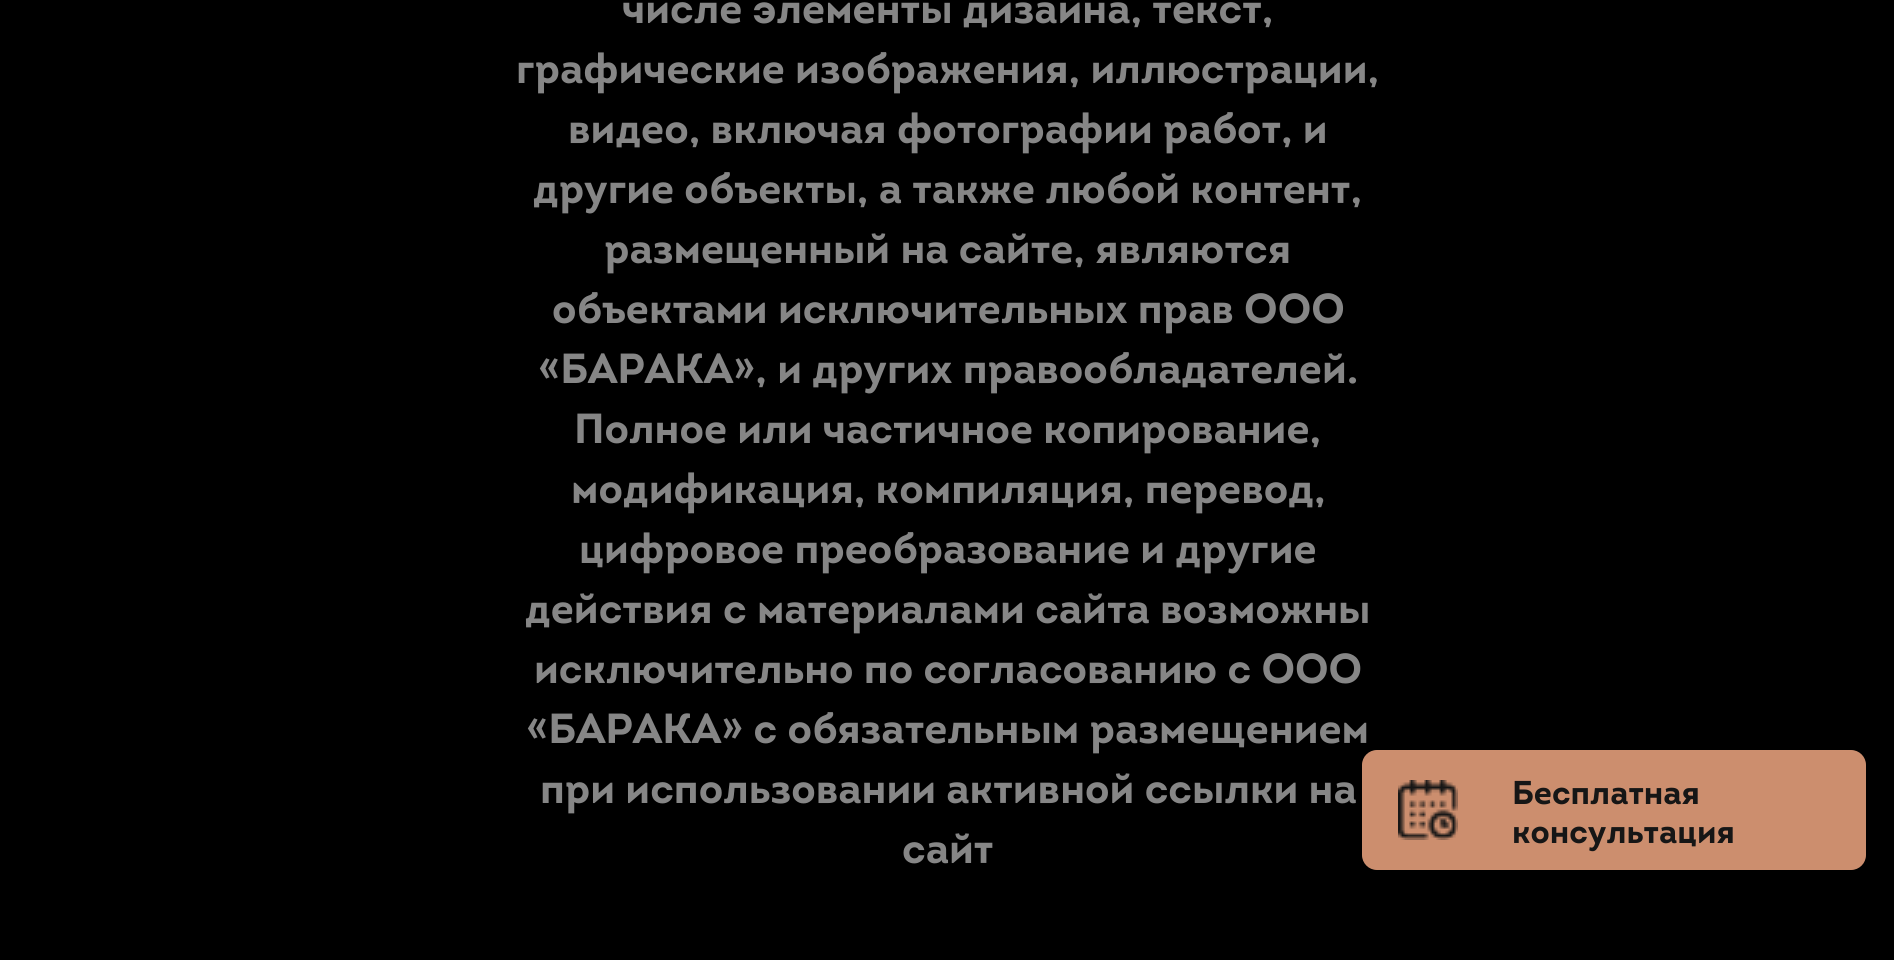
#include <cairo.h>
#include <math.h>
#include <stddef.h>

static cairo_t *c;
static void C(unsigned color){cairo_set_source_rgb(c, (color >> 16) / 255.0, (color >> 8 & 255) / 255.0, (color & 255) / 255.0);}
static void F(const char *family, double size, int italic, int bold){cairo_select_font_face(c, family, italic ? CAIRO_FONT_SLANT_ITALIC : CAIRO_FONT_SLANT_NORMAL,bold ? CAIRO_FONT_WEIGHT_BOLD : CAIRO_FONT_WEIGHT_NORMAL);cairo_set_font_size(c, size);}
static void T(double x, double y, const char *s){cairo_move_to(c, x, y);cairo_show_text(c, s);}
static void Q(double x, double y, double w, double h, double r){cairo_new_sub_path(c);cairo_arc(c, x + w - r, y + h - r, r, 0, M_PI / 2);cairo_arc(c, x + r, y + h - r, r, M_PI / 2, M_PI);cairo_arc(c, x + r, y + r, r, M_PI, 1.5 * M_PI);cairo_arc(c, x + w - r, y + r, r, 1.5 * M_PI, 2 * M_PI);cairo_close_path(c);}
static void I(const char *path, double x, double y, double w, double h){cairo_surface_t *image = cairo_image_surface_create_from_png(path);cairo_save(c);cairo_set_source_surface(c, image, x, y);cairo_rectangle(c, x, y, w, h);cairo_fill(c);cairo_restore(c);cairo_surface_destroy(image);}
int main(void) {
cairo_surface_t *surface = cairo_image_surface_create(CAIRO_FORMAT_RGB24, 1894, 960);
c = cairo_create(surface);
cairo_font_options_t *options = cairo_font_options_create();
cairo_font_options_set_hint_metrics(options, CAIRO_HINT_METRICS_OFF);
cairo_font_options_set_hint_style(options, CAIRO_HINT_STYLE_NONE);
cairo_set_font_options(c, options);
cairo_set_miter_limit(c, 4);
C(0x000000);
cairo_paint(c);
F("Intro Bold",42,0,1);
C(0x868686);
T(622,23,"числе элементы дизайна, текст,");
T(516,83,"графические изображения, иллюстрации,");
T(568,143,"видео, включая фотографии работ, и");
T(533,203,"другие объекты, а также любой контент,");
T(604,263,"размещенный на сайте, являются");
T(552,323,"объектами исключительных прав ООО");
T(538,383,"«БАРАКА», и других правообладателей.");
T(574,443,"Полное или частичное копирование,");
T(571,503,"модификация, компиляция, перевод,");
T(579,563,"цифровое преобразование и другие");
T(525,623,"действия с материалами сайта возможны");
T(534,683,"исключительно по согласованию с ООО");
T(526,743,"«БАРАКА» с обязательным размещением");
T(540,803,"при использовании активной ссылки на");
T(902,863,"сайт");
C(0xcc8e6e);
Q(1362,750,504,120,15);
cairo_fill(c);
I("1.png",1398,780,60,60);
F("Intro Bold",33,0,1);
C(0x161616);
T(1512,804,"Бесплатная");
T(1512,843,"консультация");
cairo_surface_write_to_png(surface, "o.png");
cairo_font_options_destroy(options);
cairo_destroy(c);
cairo_surface_destroy(surface);
return 0;
}
